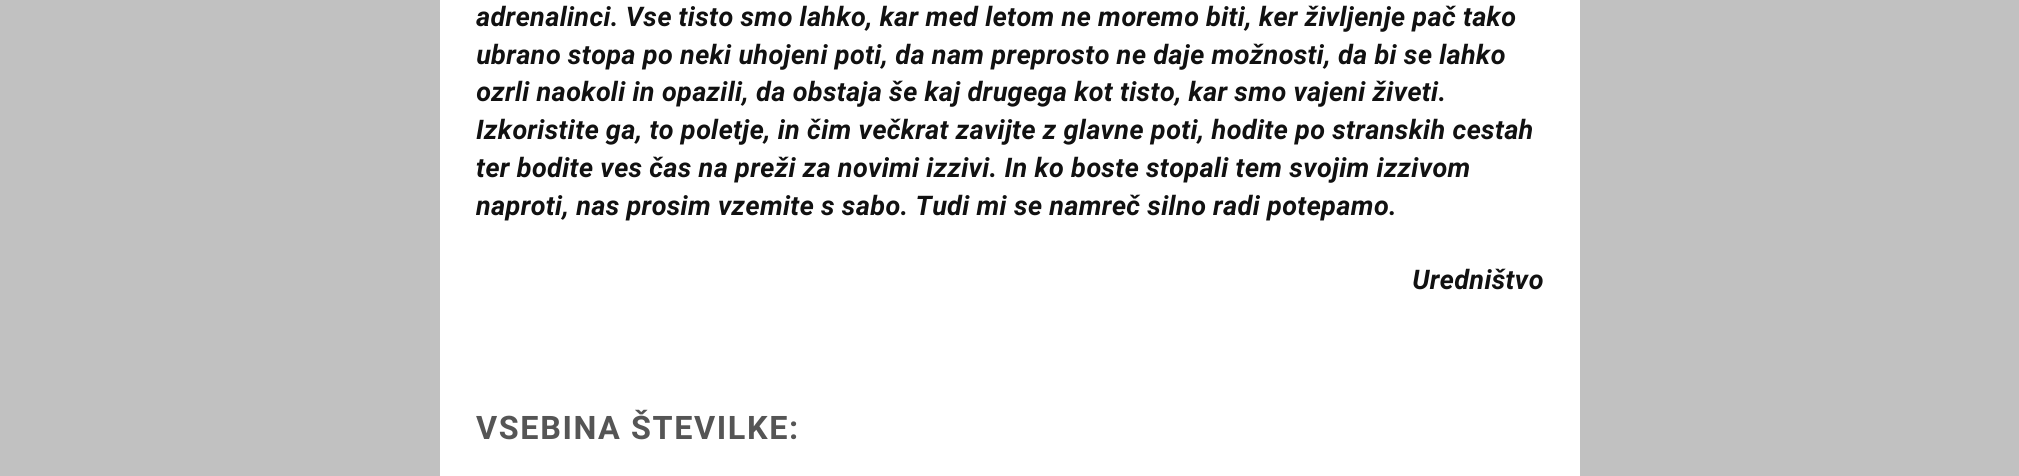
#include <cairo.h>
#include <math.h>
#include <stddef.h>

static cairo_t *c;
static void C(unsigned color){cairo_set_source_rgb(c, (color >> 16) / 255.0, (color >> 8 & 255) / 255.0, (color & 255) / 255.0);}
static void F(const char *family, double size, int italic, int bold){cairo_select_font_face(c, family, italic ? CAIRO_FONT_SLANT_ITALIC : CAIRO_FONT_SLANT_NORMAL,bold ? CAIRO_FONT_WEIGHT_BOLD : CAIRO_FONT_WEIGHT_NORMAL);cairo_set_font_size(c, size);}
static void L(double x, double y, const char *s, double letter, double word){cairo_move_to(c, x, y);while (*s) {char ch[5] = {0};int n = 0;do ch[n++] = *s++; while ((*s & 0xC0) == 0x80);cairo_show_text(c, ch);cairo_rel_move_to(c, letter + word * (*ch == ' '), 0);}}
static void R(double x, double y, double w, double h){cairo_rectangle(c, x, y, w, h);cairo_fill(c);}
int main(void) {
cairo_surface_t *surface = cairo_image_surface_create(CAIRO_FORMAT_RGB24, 2019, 476);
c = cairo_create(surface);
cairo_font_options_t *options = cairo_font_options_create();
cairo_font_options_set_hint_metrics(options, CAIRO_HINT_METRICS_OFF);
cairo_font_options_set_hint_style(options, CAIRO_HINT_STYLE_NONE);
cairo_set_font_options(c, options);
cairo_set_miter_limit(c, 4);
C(0xc1c1c1);
cairo_paint(c);
C(0xffffff);
R(440,0,1140,476);
F("Roboto",27,1,1);
C(0x111111);
L(476,26,"adrenalinci. Vse tisto smo lahko, kar med letom ne moremo biti, ker življenje pač tako",.27,0);
L(476,64,"ubrano stopa po neki uhojeni poti, da nam preprosto ne daje možnosti, da bi se lahko",.27,0);
L(476,101,"ozrli naokoli in opazili, da obstaja še kaj drugega kot tisto, kar smo vajeni živeti.",.27,0);
L(476,139,"Izkoristite ga, to poletje, in čim večkrat zavijte z glavne poti, hodite po stranskih cestah",.27,0);
L(476,177,"ter bodite ves čas na preži za novimi izzivi. In ko boste stopali tem svojim izzivom",.27,0);
L(476,215,"naproti, nas prosim vzemite s sabo. Tudi mi se namreč silno radi potepamo.",.27,0);
L(1412,289,"Uredništvo",.27,0);
F("Roboto",32.4,0,1);
C(0x555555);
L(476,439,"VSEBINA ŠTEVILKE:",1.6,0);
cairo_surface_write_to_png(surface, "o.png");
cairo_font_options_destroy(options);
cairo_destroy(c);
cairo_surface_destroy(surface);
return 0;
}
